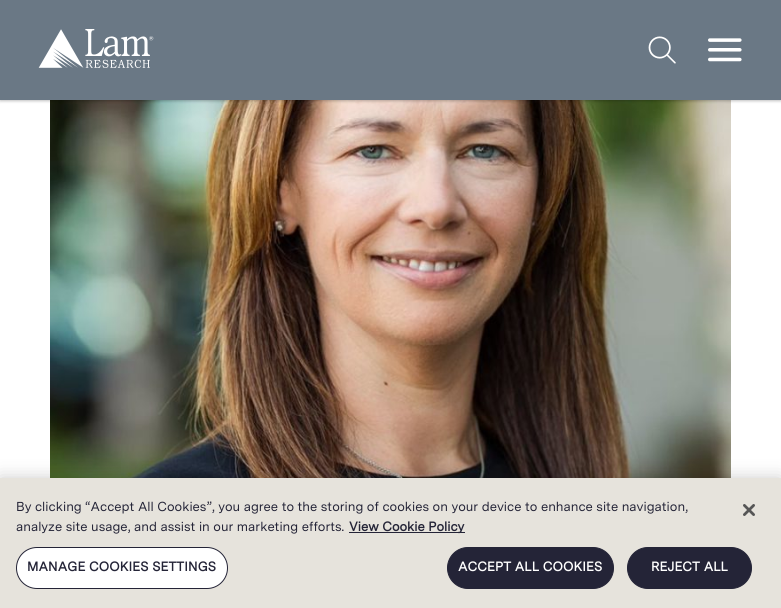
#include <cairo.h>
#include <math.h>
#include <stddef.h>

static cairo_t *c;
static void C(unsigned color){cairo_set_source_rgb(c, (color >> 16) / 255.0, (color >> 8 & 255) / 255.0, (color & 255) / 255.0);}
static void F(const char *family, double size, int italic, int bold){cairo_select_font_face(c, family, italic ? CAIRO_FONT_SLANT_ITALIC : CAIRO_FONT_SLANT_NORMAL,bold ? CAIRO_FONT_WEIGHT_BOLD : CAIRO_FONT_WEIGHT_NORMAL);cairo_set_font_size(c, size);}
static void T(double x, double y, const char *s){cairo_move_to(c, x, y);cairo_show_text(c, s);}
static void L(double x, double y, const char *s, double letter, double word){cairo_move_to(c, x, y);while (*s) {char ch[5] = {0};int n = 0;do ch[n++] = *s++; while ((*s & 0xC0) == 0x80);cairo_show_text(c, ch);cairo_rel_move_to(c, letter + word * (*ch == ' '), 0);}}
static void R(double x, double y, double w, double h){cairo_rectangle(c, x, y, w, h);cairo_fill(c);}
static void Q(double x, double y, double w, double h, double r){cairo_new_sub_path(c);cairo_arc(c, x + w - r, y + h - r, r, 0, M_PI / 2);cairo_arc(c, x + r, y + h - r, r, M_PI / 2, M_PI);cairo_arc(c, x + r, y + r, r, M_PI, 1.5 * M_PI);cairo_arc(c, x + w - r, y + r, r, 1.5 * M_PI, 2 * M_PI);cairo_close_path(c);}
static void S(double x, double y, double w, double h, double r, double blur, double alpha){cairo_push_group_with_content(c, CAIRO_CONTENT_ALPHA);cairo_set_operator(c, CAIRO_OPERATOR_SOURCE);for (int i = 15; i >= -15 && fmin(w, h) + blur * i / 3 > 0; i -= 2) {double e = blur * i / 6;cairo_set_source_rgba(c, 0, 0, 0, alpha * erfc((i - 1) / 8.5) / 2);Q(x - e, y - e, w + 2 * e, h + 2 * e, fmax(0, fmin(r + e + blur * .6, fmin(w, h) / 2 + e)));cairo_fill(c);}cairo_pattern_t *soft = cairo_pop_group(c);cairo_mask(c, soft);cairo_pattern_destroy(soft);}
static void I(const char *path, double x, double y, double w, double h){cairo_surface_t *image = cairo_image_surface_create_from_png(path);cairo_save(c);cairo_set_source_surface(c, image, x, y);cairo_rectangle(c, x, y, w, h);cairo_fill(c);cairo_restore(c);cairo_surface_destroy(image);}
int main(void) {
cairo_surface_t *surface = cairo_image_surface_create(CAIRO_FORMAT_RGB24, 781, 608);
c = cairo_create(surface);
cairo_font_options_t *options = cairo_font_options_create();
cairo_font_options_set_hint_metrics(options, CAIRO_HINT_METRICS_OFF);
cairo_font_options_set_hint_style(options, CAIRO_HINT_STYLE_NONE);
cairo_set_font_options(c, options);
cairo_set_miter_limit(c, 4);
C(0xffffff);
cairo_paint(c);
I("4.png",50,100,681,378);
C(0x000000);
S(0,1,781,100,0,1.5,.25);
C(0x6a7885);
R(0,0,781,100);
I("1.png",38,29,116,39);
I("2.png",648,36,28,28);
I("3.png",708,38,34,24);
C(0x000000);
S(0,478,781,130,0,9,.2);
C(0xe6e3dc);
R(0,478,781,130);
F("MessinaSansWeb",13,0,0);
C(0x242437);
T(16,511,"By clicking “Accept All Cookies”, you agree to the storing of cookies on your device to enhance site navigation,");
T(16,531,"analyze site usage, and assist in our marketing efforts.");
R(349,532,116,1);
F("MessinaSansWeb",13,0,1);
T(349,531,"View Cookie Policy");
C(0xffffff);
Q(16.5,547.5,211,41,20.5);
cairo_fill_preserve(c);
C(0x242437);
cairo_set_line_width(c,1);
cairo_stroke(c);
L(27,571,"MANAGE COOKIES SETTINGS",.1,0);
Q(447.5,547.5,166,41,20.5);
cairo_fill_preserve(c);
cairo_stroke(c);
C(0xffffff);
L(458,571,"ACCEPT ALL COOKIES",.1,0);
C(0x242437);
Q(627.5,547.5,124,41,20.5);
cairo_fill_preserve(c);
cairo_stroke(c);
C(0xffffff);
L(651,571,"REJECT ALL",.1,0);
I("5.png",743,504,12,12);
cairo_surface_write_to_png(surface, "o.png");
cairo_font_options_destroy(options);
cairo_destroy(c);
cairo_surface_destroy(surface);
return 0;
}
